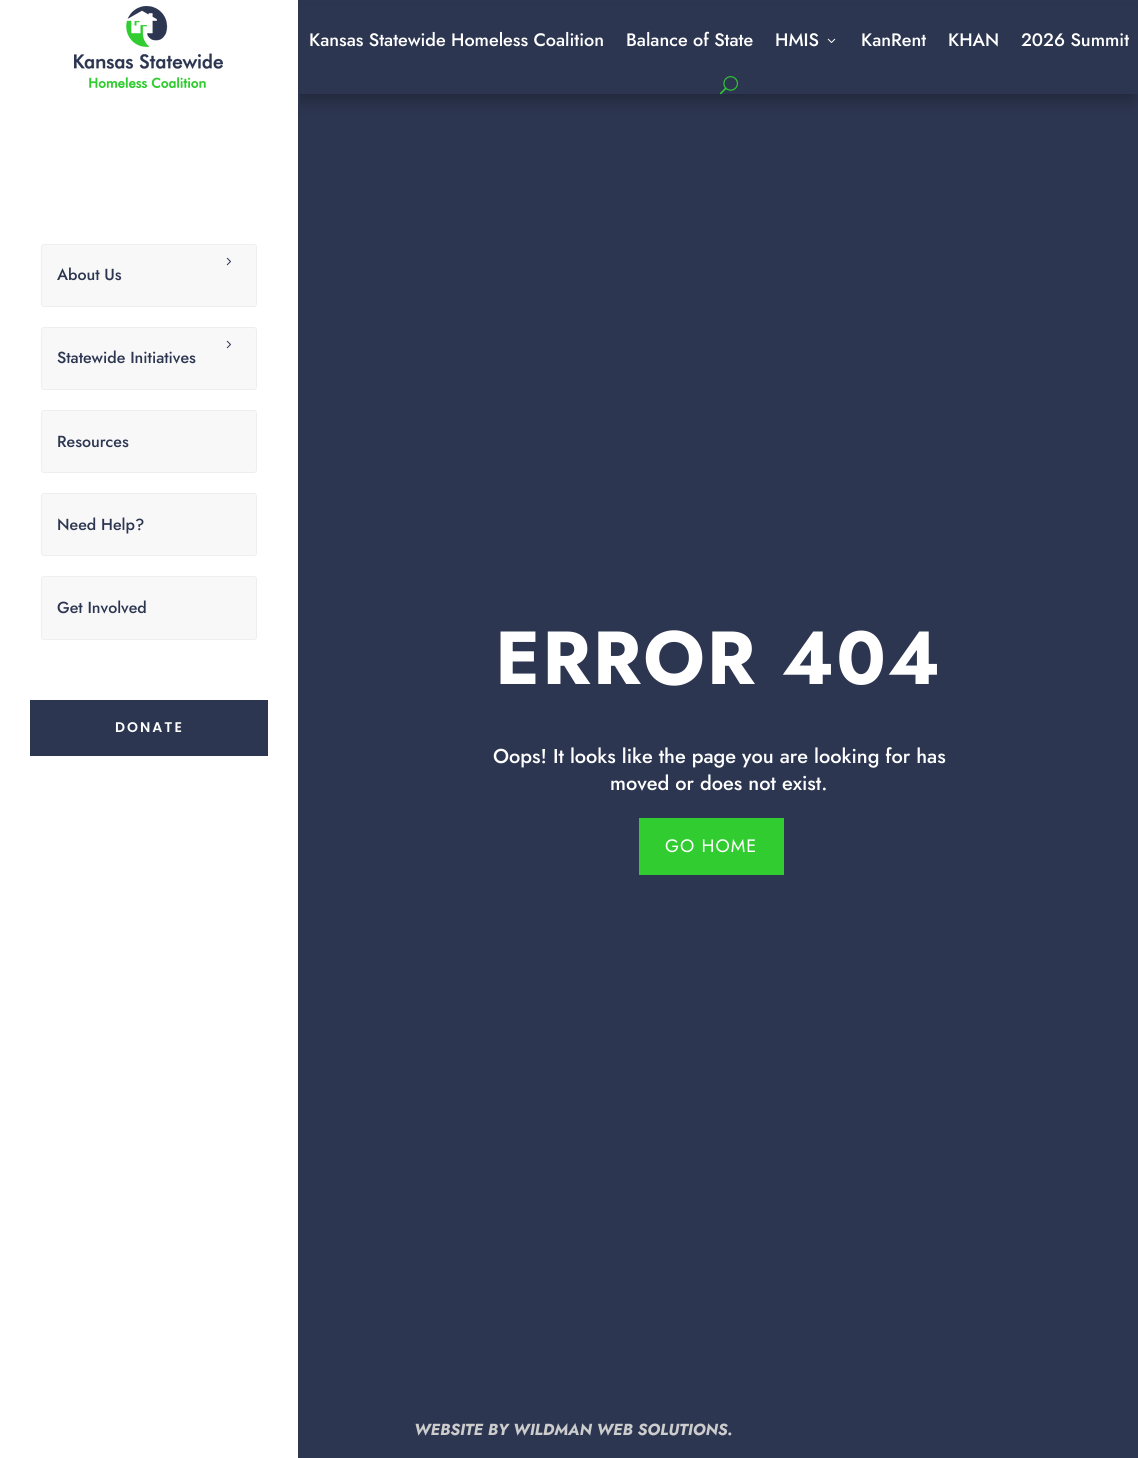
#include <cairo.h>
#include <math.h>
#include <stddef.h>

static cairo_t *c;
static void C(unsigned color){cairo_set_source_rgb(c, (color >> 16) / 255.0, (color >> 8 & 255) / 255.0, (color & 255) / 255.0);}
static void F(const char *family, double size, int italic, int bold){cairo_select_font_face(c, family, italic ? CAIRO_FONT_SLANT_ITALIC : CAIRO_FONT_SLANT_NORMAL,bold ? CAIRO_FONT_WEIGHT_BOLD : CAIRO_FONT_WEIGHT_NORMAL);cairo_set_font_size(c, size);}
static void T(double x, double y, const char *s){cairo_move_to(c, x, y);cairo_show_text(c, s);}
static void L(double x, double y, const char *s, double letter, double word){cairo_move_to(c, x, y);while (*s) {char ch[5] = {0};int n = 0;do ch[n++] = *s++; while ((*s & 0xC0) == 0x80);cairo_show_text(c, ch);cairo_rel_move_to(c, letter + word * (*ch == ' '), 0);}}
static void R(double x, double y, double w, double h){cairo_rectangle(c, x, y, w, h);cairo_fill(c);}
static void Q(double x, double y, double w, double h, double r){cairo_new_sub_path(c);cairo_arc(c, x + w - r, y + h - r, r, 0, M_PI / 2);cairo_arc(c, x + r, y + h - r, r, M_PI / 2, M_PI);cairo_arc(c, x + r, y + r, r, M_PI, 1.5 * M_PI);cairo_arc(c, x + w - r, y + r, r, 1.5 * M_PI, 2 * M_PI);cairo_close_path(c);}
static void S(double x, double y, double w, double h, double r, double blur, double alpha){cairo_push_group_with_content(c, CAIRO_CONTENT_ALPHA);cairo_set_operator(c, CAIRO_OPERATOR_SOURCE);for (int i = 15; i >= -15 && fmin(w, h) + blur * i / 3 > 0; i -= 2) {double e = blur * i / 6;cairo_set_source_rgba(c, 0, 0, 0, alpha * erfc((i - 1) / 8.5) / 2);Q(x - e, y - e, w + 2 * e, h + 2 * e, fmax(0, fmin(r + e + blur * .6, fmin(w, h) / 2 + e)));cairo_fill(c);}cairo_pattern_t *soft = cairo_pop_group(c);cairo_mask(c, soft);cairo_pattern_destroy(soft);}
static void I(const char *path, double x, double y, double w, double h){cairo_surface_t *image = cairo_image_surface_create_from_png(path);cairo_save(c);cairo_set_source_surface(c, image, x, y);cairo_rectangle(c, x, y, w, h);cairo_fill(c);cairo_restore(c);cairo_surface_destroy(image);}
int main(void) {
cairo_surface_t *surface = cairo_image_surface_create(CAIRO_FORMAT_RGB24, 1138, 1458);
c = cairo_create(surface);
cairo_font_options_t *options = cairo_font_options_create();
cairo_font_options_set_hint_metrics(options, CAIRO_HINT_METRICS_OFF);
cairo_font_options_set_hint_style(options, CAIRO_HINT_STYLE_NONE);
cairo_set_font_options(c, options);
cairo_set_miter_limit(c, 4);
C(0x2d3651);
cairo_paint(c);
C(0x000000);
S(6,18,1126,82,0,9,.3);
C(0x2d3651);
R(300,7,838,87);
F("Jost Medium",18,0,0);
C(0xffffff);
T(309,46,"Kansas Statewide Homeless Coalition");
T(626,46,"Balance of State");
T(775,46,"HMIS");
I("1.png",827,38,9,5);
T(861,46,"KanRent");
T(948,46,"KHAN");
T(1021,46,"2026 Summit");
I("2.png",720,76,18,19);
R(0,0,298,1458);
C(0x2d3651);
R(298,0,2,111);
I("3.png",74,6,149,82);
C(0xf8f8f8);
Q(41.5,244.5,215,62,2.5);
cairo_fill_preserve(c);
C(0xeeeeee);
cairo_set_line_width(c,1);
cairo_stroke(c);
I("4.png",226,257,5,9);
F("Jost Medium",16,0,0);
C(0x2d3651);
T(57,280,"About Us");
C(0xf8f8f8);
Q(41.5,327.5,215,62,2.5);
cairo_fill_preserve(c);
C(0xeeeeee);
cairo_stroke(c);
I("4.png",226,340,5,9);
C(0x2d3651);
T(57,363,"Statewide Initiatives");
C(0xf8f8f8);
Q(41.5,410.5,215,62,2.5);
cairo_fill_preserve(c);
C(0xeeeeee);
cairo_stroke(c);
C(0x2d3651);
T(57,447,"Resources");
C(0xf8f8f8);
Q(41.5,493.5,215,62,2.5);
cairo_fill_preserve(c);
C(0xeeeeee);
cairo_stroke(c);
C(0x2d3651);
T(57,530,"Need Help?");
C(0xf8f8f8);
Q(41.5,576.5,215,63,2.5);
cairo_fill_preserve(c);
C(0xeeeeee);
cairo_stroke(c);
C(0x2d3651);
T(57,613,"Get Involved");
R(42,712,214,32);
cairo_new_path(c);
cairo_move_to(c,36,706);
cairo_line_to(c,262,706);
cairo_line_to(c,262,750);
cairo_line_to(c,36,750);
cairo_close_path(c);
cairo_set_line_width(c,12);
cairo_stroke(c);
F("Poppins SemiBold",14,0,0);
C(0xffffff);
L(115,732,"DONATE",2,0);
F("Jost",75,0,1);
L(495,684,"ERROR 404",2,0);
F("Jost Medium",20,0,0);
T(493,763,"Oops! It looks like the page you are looking for has");
T(610,790,"moved or does not exist.");
C(0x30cc30);
R(647,826,129,41);
cairo_new_path(c);
cairo_move_to(c,643,822);
cairo_line_to(c,780,822);
cairo_line_to(c,780,871);
cairo_line_to(c,643,871);
cairo_close_path(c);
cairo_set_line_width(c,8);
cairo_stroke(c);
F("Jost",18,0,0);
C(0xffffff);
L(665,852,"GO HOME",1,0);
F("Jost",16,1,1);
C(0xcccccc);
T(414,1435,"WEBSITE BY WILDMAN WEB SOLUTIONS.");
cairo_surface_write_to_png(surface, "o.png");
cairo_font_options_destroy(options);
cairo_destroy(c);
cairo_surface_destroy(surface);
return 0;
}
